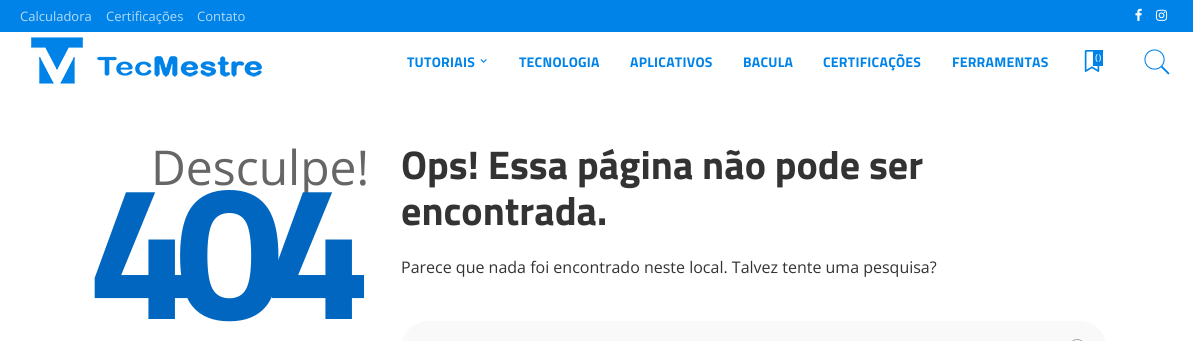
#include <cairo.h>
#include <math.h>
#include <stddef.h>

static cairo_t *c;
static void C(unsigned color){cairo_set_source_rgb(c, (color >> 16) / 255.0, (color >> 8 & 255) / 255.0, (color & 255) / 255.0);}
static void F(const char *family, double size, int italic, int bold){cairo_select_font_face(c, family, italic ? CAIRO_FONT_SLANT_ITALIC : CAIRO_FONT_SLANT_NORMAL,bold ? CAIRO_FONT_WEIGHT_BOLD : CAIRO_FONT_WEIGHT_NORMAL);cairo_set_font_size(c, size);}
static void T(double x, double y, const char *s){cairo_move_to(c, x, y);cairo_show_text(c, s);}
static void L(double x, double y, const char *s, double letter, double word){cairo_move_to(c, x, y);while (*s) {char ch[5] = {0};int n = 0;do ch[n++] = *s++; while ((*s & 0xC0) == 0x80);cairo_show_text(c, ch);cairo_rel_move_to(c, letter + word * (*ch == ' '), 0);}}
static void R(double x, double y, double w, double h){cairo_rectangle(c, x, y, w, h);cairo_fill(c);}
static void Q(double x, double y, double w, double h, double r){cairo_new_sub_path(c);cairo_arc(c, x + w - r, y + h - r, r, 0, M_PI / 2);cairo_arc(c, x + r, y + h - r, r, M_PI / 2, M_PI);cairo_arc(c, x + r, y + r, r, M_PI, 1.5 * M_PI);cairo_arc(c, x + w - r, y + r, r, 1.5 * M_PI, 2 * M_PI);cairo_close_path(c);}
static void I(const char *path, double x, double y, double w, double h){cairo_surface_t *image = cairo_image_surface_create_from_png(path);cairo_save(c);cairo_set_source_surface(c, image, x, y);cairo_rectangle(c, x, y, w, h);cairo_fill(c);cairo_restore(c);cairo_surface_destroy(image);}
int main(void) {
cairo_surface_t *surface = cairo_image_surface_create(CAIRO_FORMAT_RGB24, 1193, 341);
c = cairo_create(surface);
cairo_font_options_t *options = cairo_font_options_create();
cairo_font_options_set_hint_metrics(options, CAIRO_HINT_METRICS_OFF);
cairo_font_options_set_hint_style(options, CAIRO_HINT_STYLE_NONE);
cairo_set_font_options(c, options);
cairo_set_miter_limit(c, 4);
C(0xffffff);
cairo_paint(c);
C(0x0083e8);
R(0,0,1193,32);
F("Open Sans",13,0,0);
C(0xb3daf8);
T(20,21,"Calculadora");
T(106,21,"Certificações");
T(197,21,"Contato");
I("1.png",1135,8,7,13);
I("2.png",1155,9,13,12);
I("3.png",31,37,231,47);
F("Titillium Web",14,0,1);
C(0x0083e8);
L(407,67,"TUTORIAIS",.25,0);
I("4.png",480,59,7,4);
L(519,67,"TECNOLOGIA",.25,0);
L(630,67,"APLICATIVOS",.25,0);
L(743,67,"BACULA",.25,0);
L(823,67,"CERTIFICAÇÕES",.25,0);
L(952,67,"FERRAMENTAS",.25,0);
R(1093,50,10,16);
F("Open Sans",11,0,0);
C(0xffffff);
T(1095,62,"0");
I("5.png",1084,50,16,22);
I("6.png",1144,49,26,26);
F("Open Sans",48,0,0);
C(0x666666);
T(151,185,"Desculpe!");
F("Titillium Web",192,0,1);
C(0x0066bf);
L(87,319,"404",-19,0);
F("Titillium Web",40,0,1);
C(0x333333);
T(401,179,"Ops! Essa página não pode ser");
T(401,225,"encontrada.");
F("Open Sans",16,0,0);
T(401,273,"Parece que nada foi encontrado neste local. Talvez tente uma pesquisa?");
C(0xf9f9f9);
Q(401,321,706,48,28);
cairo_fill(c);
I("7.png",1072,339,10,2);
cairo_surface_write_to_png(surface, "o.png");
cairo_font_options_destroy(options);
cairo_destroy(c);
cairo_surface_destroy(surface);
return 0;
}
